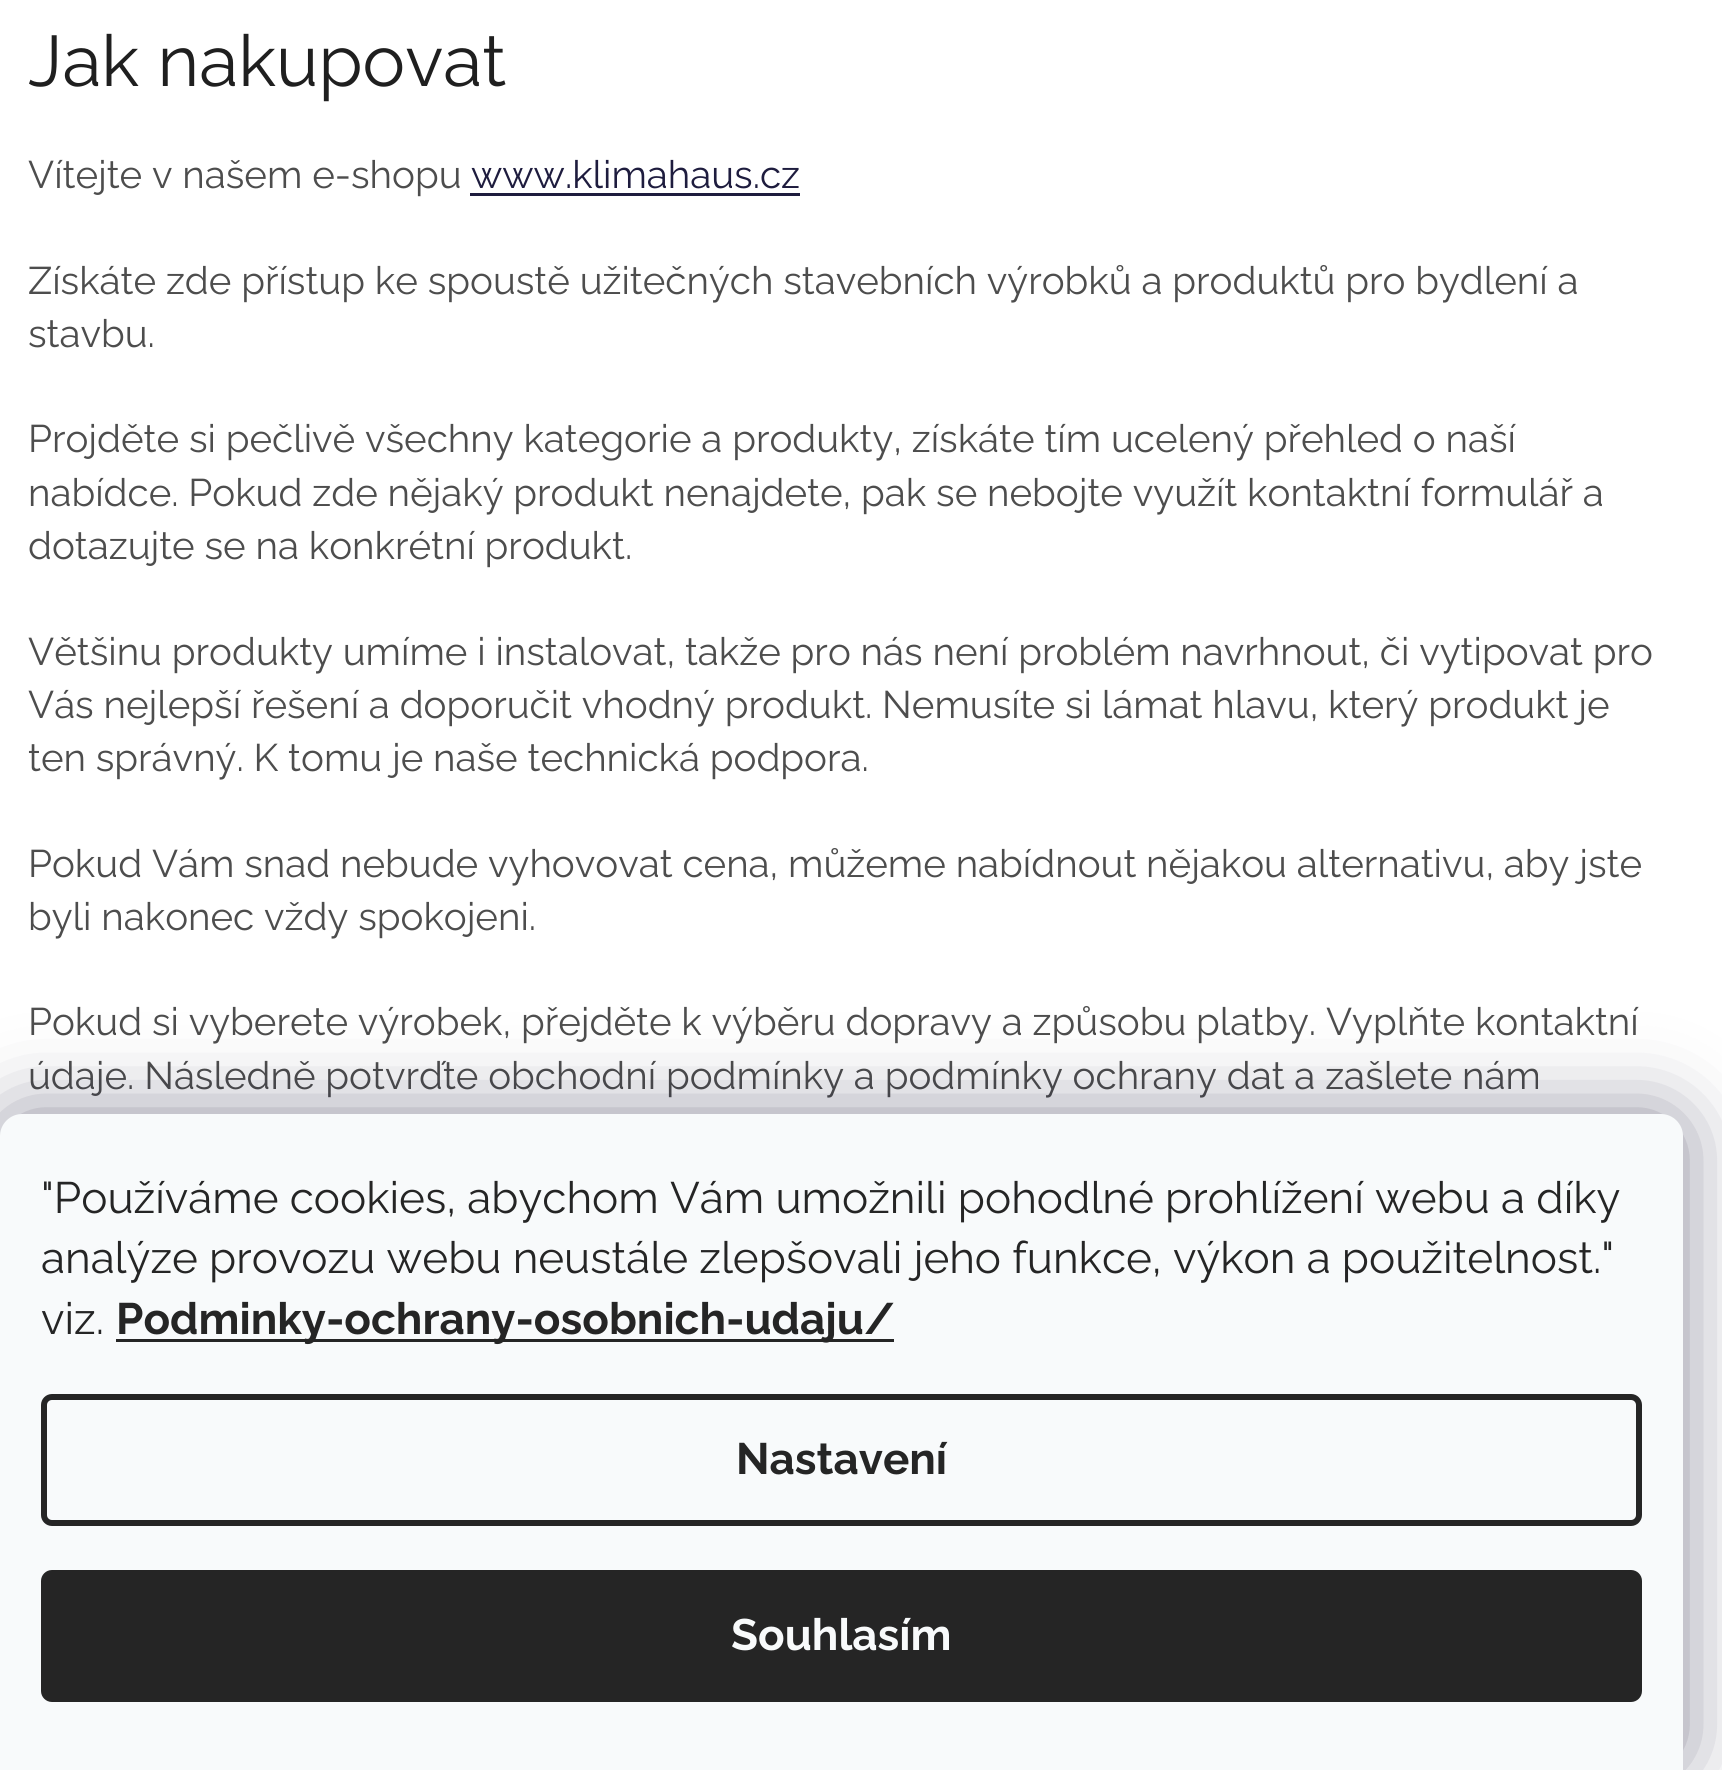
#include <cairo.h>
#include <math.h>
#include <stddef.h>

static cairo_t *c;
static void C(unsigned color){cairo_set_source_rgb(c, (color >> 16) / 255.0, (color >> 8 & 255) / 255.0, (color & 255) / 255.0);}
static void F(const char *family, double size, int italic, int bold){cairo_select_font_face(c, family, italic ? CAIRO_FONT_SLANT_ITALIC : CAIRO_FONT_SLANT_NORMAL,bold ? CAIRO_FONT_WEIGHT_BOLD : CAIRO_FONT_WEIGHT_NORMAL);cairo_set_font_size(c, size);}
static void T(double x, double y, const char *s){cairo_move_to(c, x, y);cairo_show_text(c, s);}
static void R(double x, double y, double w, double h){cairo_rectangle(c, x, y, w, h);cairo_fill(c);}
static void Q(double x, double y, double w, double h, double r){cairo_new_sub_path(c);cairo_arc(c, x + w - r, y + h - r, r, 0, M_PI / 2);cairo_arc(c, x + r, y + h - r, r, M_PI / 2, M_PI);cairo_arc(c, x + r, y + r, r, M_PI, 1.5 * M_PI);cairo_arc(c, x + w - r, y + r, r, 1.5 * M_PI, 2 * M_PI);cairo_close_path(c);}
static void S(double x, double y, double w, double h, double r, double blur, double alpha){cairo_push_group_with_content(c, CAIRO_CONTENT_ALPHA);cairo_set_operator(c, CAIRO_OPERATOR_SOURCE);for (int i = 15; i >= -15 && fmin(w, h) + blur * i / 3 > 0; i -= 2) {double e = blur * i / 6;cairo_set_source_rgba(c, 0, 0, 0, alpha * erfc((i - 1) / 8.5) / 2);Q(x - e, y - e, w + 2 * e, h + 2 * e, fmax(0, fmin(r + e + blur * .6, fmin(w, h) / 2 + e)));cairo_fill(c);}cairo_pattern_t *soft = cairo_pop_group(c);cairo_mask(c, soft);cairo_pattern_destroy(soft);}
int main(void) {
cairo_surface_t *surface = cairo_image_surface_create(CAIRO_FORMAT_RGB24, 1722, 1770);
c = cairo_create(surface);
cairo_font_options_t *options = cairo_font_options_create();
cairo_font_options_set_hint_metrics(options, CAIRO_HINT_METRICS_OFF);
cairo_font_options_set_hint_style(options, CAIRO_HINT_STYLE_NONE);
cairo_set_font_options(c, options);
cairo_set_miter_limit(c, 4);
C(0xffffff);
cairo_paint(c);
F("Raleway",71.5,0,0);
C(0x1f1f1f);
T(28,86,"Jak nakupovat");
F("Raleway",38.5,0,0);
C(0x4d4d4d);
T(28,188,"Vítejte v našem e-shopu");
C(0x1e1c3e);
T(471,188,"www.klimahaus.cz");
R(470,193,330,3);
C(0x4d4d4d);
T(28,294,"Získáte zde přístup ke spoustě užitečných stavebních výrobků a produktů pro bydlení a");
T(28,347,"stavbu.");
T(28,452,"Projděte si pečlivě všechny kategorie a produkty, získáte tím ucelený přehled o naší");
T(28,506,"nabídce. Pokud zde nějaký produkt nenajdete, pak se nebojte využít kontaktní formulář a");
T(28,559,"dotazujte se na konkrétní produkt.");
T(28,665,"Většinu produkty umíme i instalovat, takže pro nás není problém navrhnout, či vytipovat pro");
T(28,718,"Vás nejlepší řešení a doporučit vhodný produkt. Nemusíte si lámat hlavu, který produkt je");
T(28,771,"ten správný. K tomu je naše technická podpora.");
T(28,877,"Pokud Vám snad nebude vyhovovat cena, můžeme nabídnout nějakou alternativu, aby jste");
T(28,930,"byli nakonec vždy spokojeni.");
T(28,1035,"Pokud si vyberete výrobek, přejděte k výběru dopravy a způsobu platby. Vyplňte kontaktní");
T(28,1089,"údaje. Následně potvrďte obchodní podmínky a podmínky ochrany dat a zašlete nám");
C(0x1b1939);
S(0,1114,1683,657,22,41,.5);
C(0xf8fafb);
cairo_new_path(c);
cairo_move_to(c,22,1114);
cairo_line_to(c,1661,1114);
cairo_curve_to(c,1673,1114,1683,1124,1683,1136);
cairo_line_to(c,1683,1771);
cairo_line_to(c,0,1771);
cairo_line_to(c,0,1136);
cairo_curve_to(c,0,1124,10,1114,22,1114);
cairo_close_path(c);
cairo_fill(c);
F("Raleway",44,0,0);
C(0x252525);
T(41,1213,"\"Používáme cookies, abychom Vám umožnili pohodlné prohlížení webu a díky");
T(41,1273,"analýze provozu webu neustále zlepšovali jeho funkce, výkon a použitelnost.\"");
T(41,1334,"viz.");
R(116,1339,778,3);
F("Raleway",44,0,1);
T(116,1334,"Podminky-ochrany-osobnich-udaju/");
Q(44,1397,1595,126,8);
cairo_set_line_width(c,6);
cairo_stroke(c);
T(736,1474,"Nastavení");
Q(41,1570,1601,132,11);
cairo_fill(c);
C(0xf8fafb);
T(731,1650,"Souhlasím");
cairo_surface_write_to_png(surface, "o.png");
cairo_font_options_destroy(options);
cairo_destroy(c);
cairo_surface_destroy(surface);
return 0;
}
